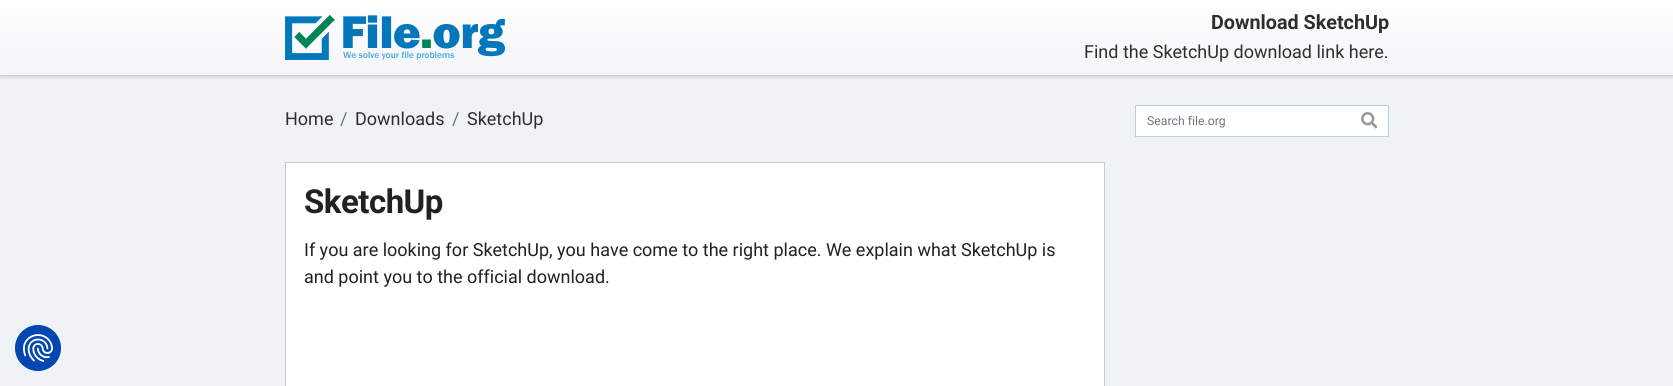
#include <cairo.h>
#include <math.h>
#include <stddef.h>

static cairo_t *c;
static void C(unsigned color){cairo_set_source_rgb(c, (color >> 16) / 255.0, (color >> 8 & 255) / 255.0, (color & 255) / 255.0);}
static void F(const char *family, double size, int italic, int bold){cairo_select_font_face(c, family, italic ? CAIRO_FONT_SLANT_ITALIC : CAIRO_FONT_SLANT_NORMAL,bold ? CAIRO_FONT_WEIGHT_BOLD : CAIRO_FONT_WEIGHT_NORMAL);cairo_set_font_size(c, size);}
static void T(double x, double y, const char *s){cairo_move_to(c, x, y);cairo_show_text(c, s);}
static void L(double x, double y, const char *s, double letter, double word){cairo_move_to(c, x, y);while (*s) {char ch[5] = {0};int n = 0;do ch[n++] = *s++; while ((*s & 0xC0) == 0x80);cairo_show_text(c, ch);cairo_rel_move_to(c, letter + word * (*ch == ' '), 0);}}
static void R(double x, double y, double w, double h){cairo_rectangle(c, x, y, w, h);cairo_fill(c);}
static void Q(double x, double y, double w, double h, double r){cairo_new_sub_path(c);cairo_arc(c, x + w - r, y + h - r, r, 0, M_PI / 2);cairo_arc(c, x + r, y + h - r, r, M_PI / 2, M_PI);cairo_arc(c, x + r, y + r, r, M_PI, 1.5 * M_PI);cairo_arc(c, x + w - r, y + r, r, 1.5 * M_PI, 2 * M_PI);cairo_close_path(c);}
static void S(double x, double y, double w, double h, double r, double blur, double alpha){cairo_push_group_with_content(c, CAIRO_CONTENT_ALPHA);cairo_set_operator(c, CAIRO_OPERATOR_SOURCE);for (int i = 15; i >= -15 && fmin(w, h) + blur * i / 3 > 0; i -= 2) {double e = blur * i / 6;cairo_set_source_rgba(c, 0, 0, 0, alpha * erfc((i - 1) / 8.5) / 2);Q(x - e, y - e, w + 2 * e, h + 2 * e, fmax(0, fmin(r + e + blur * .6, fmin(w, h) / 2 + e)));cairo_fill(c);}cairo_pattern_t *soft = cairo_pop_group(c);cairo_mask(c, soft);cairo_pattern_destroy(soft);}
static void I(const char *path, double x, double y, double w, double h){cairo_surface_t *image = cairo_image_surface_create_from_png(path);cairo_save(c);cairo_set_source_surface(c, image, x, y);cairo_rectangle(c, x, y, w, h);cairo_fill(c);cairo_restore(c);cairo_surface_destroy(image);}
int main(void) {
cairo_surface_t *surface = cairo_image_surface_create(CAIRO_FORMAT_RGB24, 1673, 386);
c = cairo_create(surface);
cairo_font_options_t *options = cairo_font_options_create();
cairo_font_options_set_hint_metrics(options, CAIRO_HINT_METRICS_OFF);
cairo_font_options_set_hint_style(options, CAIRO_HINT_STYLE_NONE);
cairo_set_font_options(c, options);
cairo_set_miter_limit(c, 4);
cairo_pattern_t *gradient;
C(0xeff3f5);
cairo_paint(c);
C(0x787878);
S(0,2,1673,75,0,2,.2);
C(0x323232);
S(0,1,1673,75,0,1.5,.15);
gradient = cairo_pattern_create_linear(837,0,837,75);
cairo_pattern_add_color_stop_rgba(gradient,0,1,1,1,1);
cairo_pattern_add_color_stop_rgba(gradient,1,0.961,0.961,0.98,1);
cairo_set_source(c,gradient);
cairo_pattern_destroy(gradient);
R(0,0,1673,75);
I("1.png",285,15,220,45);
F("Roboto",19.75,0,1);
C(0x2e2e2d);
T(1211,29,"Download SketchUp");
F("Roboto",18,0,0);
T(1084,58,"Find the SketchUp download link here.");
T(285,125,"Home");
C(0x6c757d);
T(340,125,"/");
C(0x2e2e2d);
T(355,125,"Downloads");
C(0x6c757d);
T(452,125,"/");
C(0x2e2e2d);
T(467,125,"SketchUp");
C(0xffffff);
cairo_rectangle(c,285.5,162.5,819,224);
cairo_fill_preserve(c);
C(0xc0cdd9);
cairo_set_line_width(c,1);
cairo_stroke(c);
F("Roboto",33,0,1);
C(0x212121);
L(304,213,"SketchUp",-.5,0);
F("Roboto",18,0,0);
T(304,256,"If you are looking for SketchUp, you have come to the right place. We explain what SketchUp is");
T(304,283,"and point you to the official download.");
C(0xffffff);
cairo_rectangle(c,1135.5,105.5,253,31);
cairo_fill_preserve(c);
C(0xc0cdd9);
cairo_stroke(c);
F("Roboto",12.25,0,0);
C(0x6c757d);
T(1147,125,"Search file.org");
I("2.png",1361,112,16,17);
C(0x0047b2);
cairo_arc(c,38,348,22.5,0,2 * M_PI);
cairo_fill_preserve(c);
cairo_stroke(c);
I("3.png",23,334,30,28);
cairo_surface_write_to_png(surface, "o.png");
cairo_font_options_destroy(options);
cairo_destroy(c);
cairo_surface_destroy(surface);
return 0;
}
